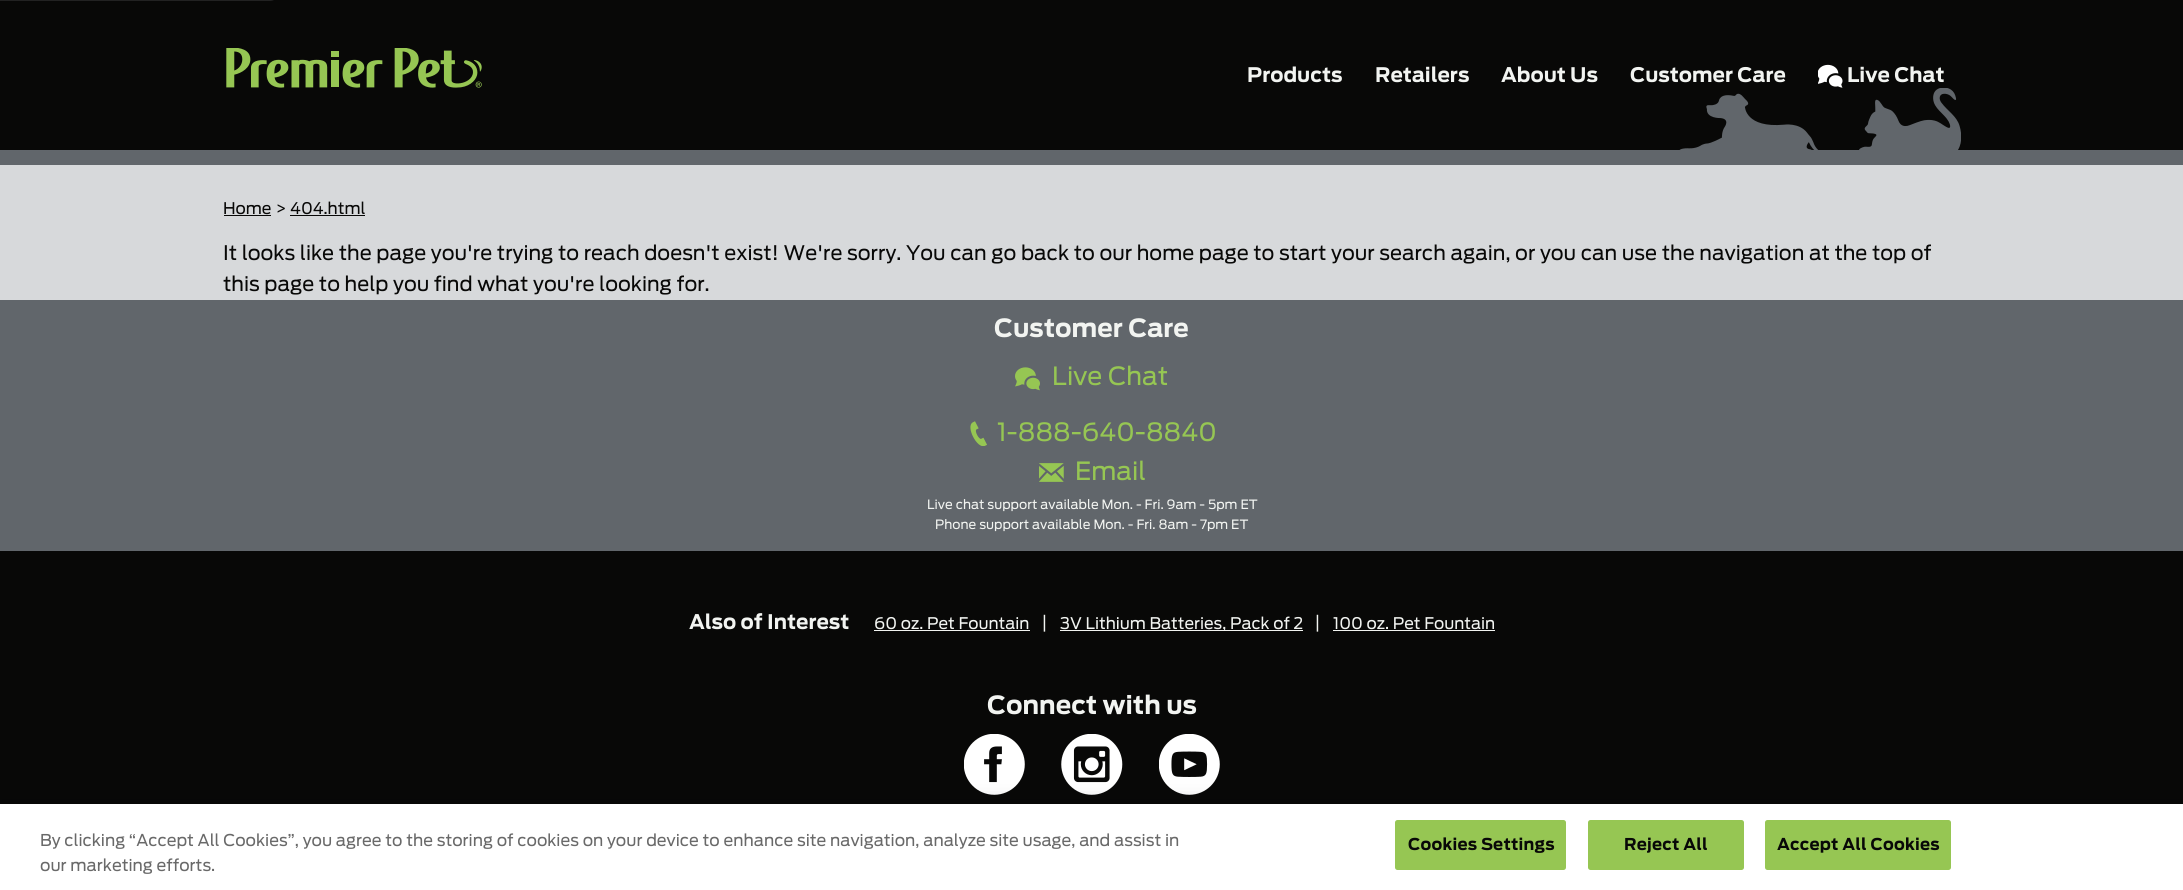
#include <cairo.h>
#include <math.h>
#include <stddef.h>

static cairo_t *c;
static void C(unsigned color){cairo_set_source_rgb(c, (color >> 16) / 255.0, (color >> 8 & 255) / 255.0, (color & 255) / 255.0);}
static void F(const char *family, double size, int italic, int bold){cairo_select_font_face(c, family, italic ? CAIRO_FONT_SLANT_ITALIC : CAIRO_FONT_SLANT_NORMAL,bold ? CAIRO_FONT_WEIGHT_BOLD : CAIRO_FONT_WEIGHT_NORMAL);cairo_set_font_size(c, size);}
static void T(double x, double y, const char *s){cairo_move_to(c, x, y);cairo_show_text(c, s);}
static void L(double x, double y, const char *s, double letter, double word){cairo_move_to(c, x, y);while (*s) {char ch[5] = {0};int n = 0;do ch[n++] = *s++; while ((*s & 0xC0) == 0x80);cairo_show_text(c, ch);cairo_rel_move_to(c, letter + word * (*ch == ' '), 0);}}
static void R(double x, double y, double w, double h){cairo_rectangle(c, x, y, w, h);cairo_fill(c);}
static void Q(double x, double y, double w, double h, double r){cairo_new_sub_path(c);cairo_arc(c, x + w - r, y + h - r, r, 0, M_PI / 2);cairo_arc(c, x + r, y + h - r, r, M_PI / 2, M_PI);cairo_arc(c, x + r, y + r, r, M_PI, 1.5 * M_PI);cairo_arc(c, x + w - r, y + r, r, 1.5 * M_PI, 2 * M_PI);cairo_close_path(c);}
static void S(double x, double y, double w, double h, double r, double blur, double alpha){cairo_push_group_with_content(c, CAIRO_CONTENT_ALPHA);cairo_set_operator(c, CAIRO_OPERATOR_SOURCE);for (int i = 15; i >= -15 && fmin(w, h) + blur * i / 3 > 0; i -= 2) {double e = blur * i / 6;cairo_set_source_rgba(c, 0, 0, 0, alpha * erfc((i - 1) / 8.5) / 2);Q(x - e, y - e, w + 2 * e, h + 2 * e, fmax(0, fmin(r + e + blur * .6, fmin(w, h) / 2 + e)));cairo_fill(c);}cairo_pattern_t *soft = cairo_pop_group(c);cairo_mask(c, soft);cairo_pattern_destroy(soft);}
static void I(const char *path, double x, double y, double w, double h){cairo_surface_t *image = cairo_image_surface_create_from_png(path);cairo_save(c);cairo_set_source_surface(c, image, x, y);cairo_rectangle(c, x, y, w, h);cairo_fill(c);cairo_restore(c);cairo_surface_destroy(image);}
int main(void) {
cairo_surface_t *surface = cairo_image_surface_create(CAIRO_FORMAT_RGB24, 2183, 890);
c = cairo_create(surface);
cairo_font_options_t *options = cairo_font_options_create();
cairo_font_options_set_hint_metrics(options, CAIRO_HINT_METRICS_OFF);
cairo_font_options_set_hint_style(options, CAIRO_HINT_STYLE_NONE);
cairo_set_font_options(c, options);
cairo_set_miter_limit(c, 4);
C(0xd7d9db);
cairo_paint(c);
C(0x080807);
R(0,0,2183,150);
C(0x222222);
cairo_new_path(c);
cairo_move_to(c,0,-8);
cairo_line_to(c,278,-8);
cairo_line_to(c,278,-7);
cairo_curve_to(c,278,-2.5,274.5,1,270,1);
cairo_line_to(c,0,1);
cairo_close_path(c);
cairo_fill(c);
C(0x61666b);
R(0,150,2183,15);
I("1.png",226,48,256,40);
F("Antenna",20,0,1);
C(0xf2f4f1);
T(1247,82,"Products");
T(1375,82,"Retailers");
T(1501,82,"About Us");
T(1630,82,"Customer Care");
I("2.png",1818,64,25,24);
T(1847,82,"Live Chat");
I("3.png",1679,88,282,62);
F("Antenna",16,0,0);
C(0x080807);
T(223,214,"Home > 404.html");
R(224,215,47,1);
R(290,215,75,1);
F("Antenna",20,0,0);
T(223,260,"It looks like the page you're trying to reach doesn't exist! We're sorry. You can go back to our home page to start your search again, or you can use the navigation at the top of");
T(223,291,"this page to help you find what you're looking for.");
R(0,551,2183,253);
C(0x61666b);
R(0,300,2183,251);
F("Antenna",25,0,1);
C(0xf2f4f1);
T(994,337,"Customer Care");
I("4.png",1015,367,25,24);
F("Antenna",25,0,0);
C(0x96c653);
T(1052,385,"Live Chat");
I("5.png",970,421,17,25);
T(997,441,"1-888-640-8840");
I("6.png",1039,463,25,19);
T(1075,480,"Email");
F("Antenna",12.8,0,0);
C(0xf2f4f1);
T(927,509,"Live chat support available Mon. - Fri. 9am - 5pm ET");
T(935,529,"Phone support available Mon. - Fri. 8am - 7pm ET");
F("Antenna",20,0,1);
T(689,629,"Also of Interest");
F("Antenna",16,0,0);
T(874,629,"60 oz. Pet Fountain");
R(874,630,156,1);
F("Roboto",20,0,0);
T(1042,629,"|");
R(1060,630,243,1);
F("Antenna",16,0,0);
T(1060,629,"3V Lithium Batteries, Pack of 2");
F("Roboto",20,0,0);
T(1315,629,"|");
F("Antenna",16,0,0);
T(1333,629,"100 oz. Pet Fountain");
R(1333,630,162,1);
F("Antenna",25,0,1);
T(987,714,"Connect with us");
I("7.png",964,734,61,61);
I("8.png",1061,734,62,61);
I("9.png",1159,734,61,61);
C(0x000000);
S(0,804,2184,86,0,11,.2);
C(0xffffff);
R(0,804,2183,86);
F("Antenna",16.25,0,0);
C(0x696969);
T(40,846,"By clicking “Accept All Cookies”, you agree to the storing of cookies on your device to enhance site navigation, analyze site usage, and assist in");
T(40,871,"our marketing efforts.");
C(0x96c653);
Q(1395,820,171,50,2.5);
cairo_fill(c);
F("Antenna",16.25,0,1);
C(0x080807);
L(1408,850,"Cookies Settings",.2,0);
C(0x96c653);
Q(1588,820,156,50,2.5);
cairo_fill(c);
C(0x080807);
L(1624,850,"Reject All",.2,0);
C(0x96c653);
Q(1765,820,186,50,2.5);
cairo_fill(c);
C(0x080807);
L(1777,850,"Accept All Cookies",.2,0);
cairo_surface_write_to_png(surface, "o.png");
cairo_font_options_destroy(options);
cairo_destroy(c);
cairo_surface_destroy(surface);
return 0;
}
